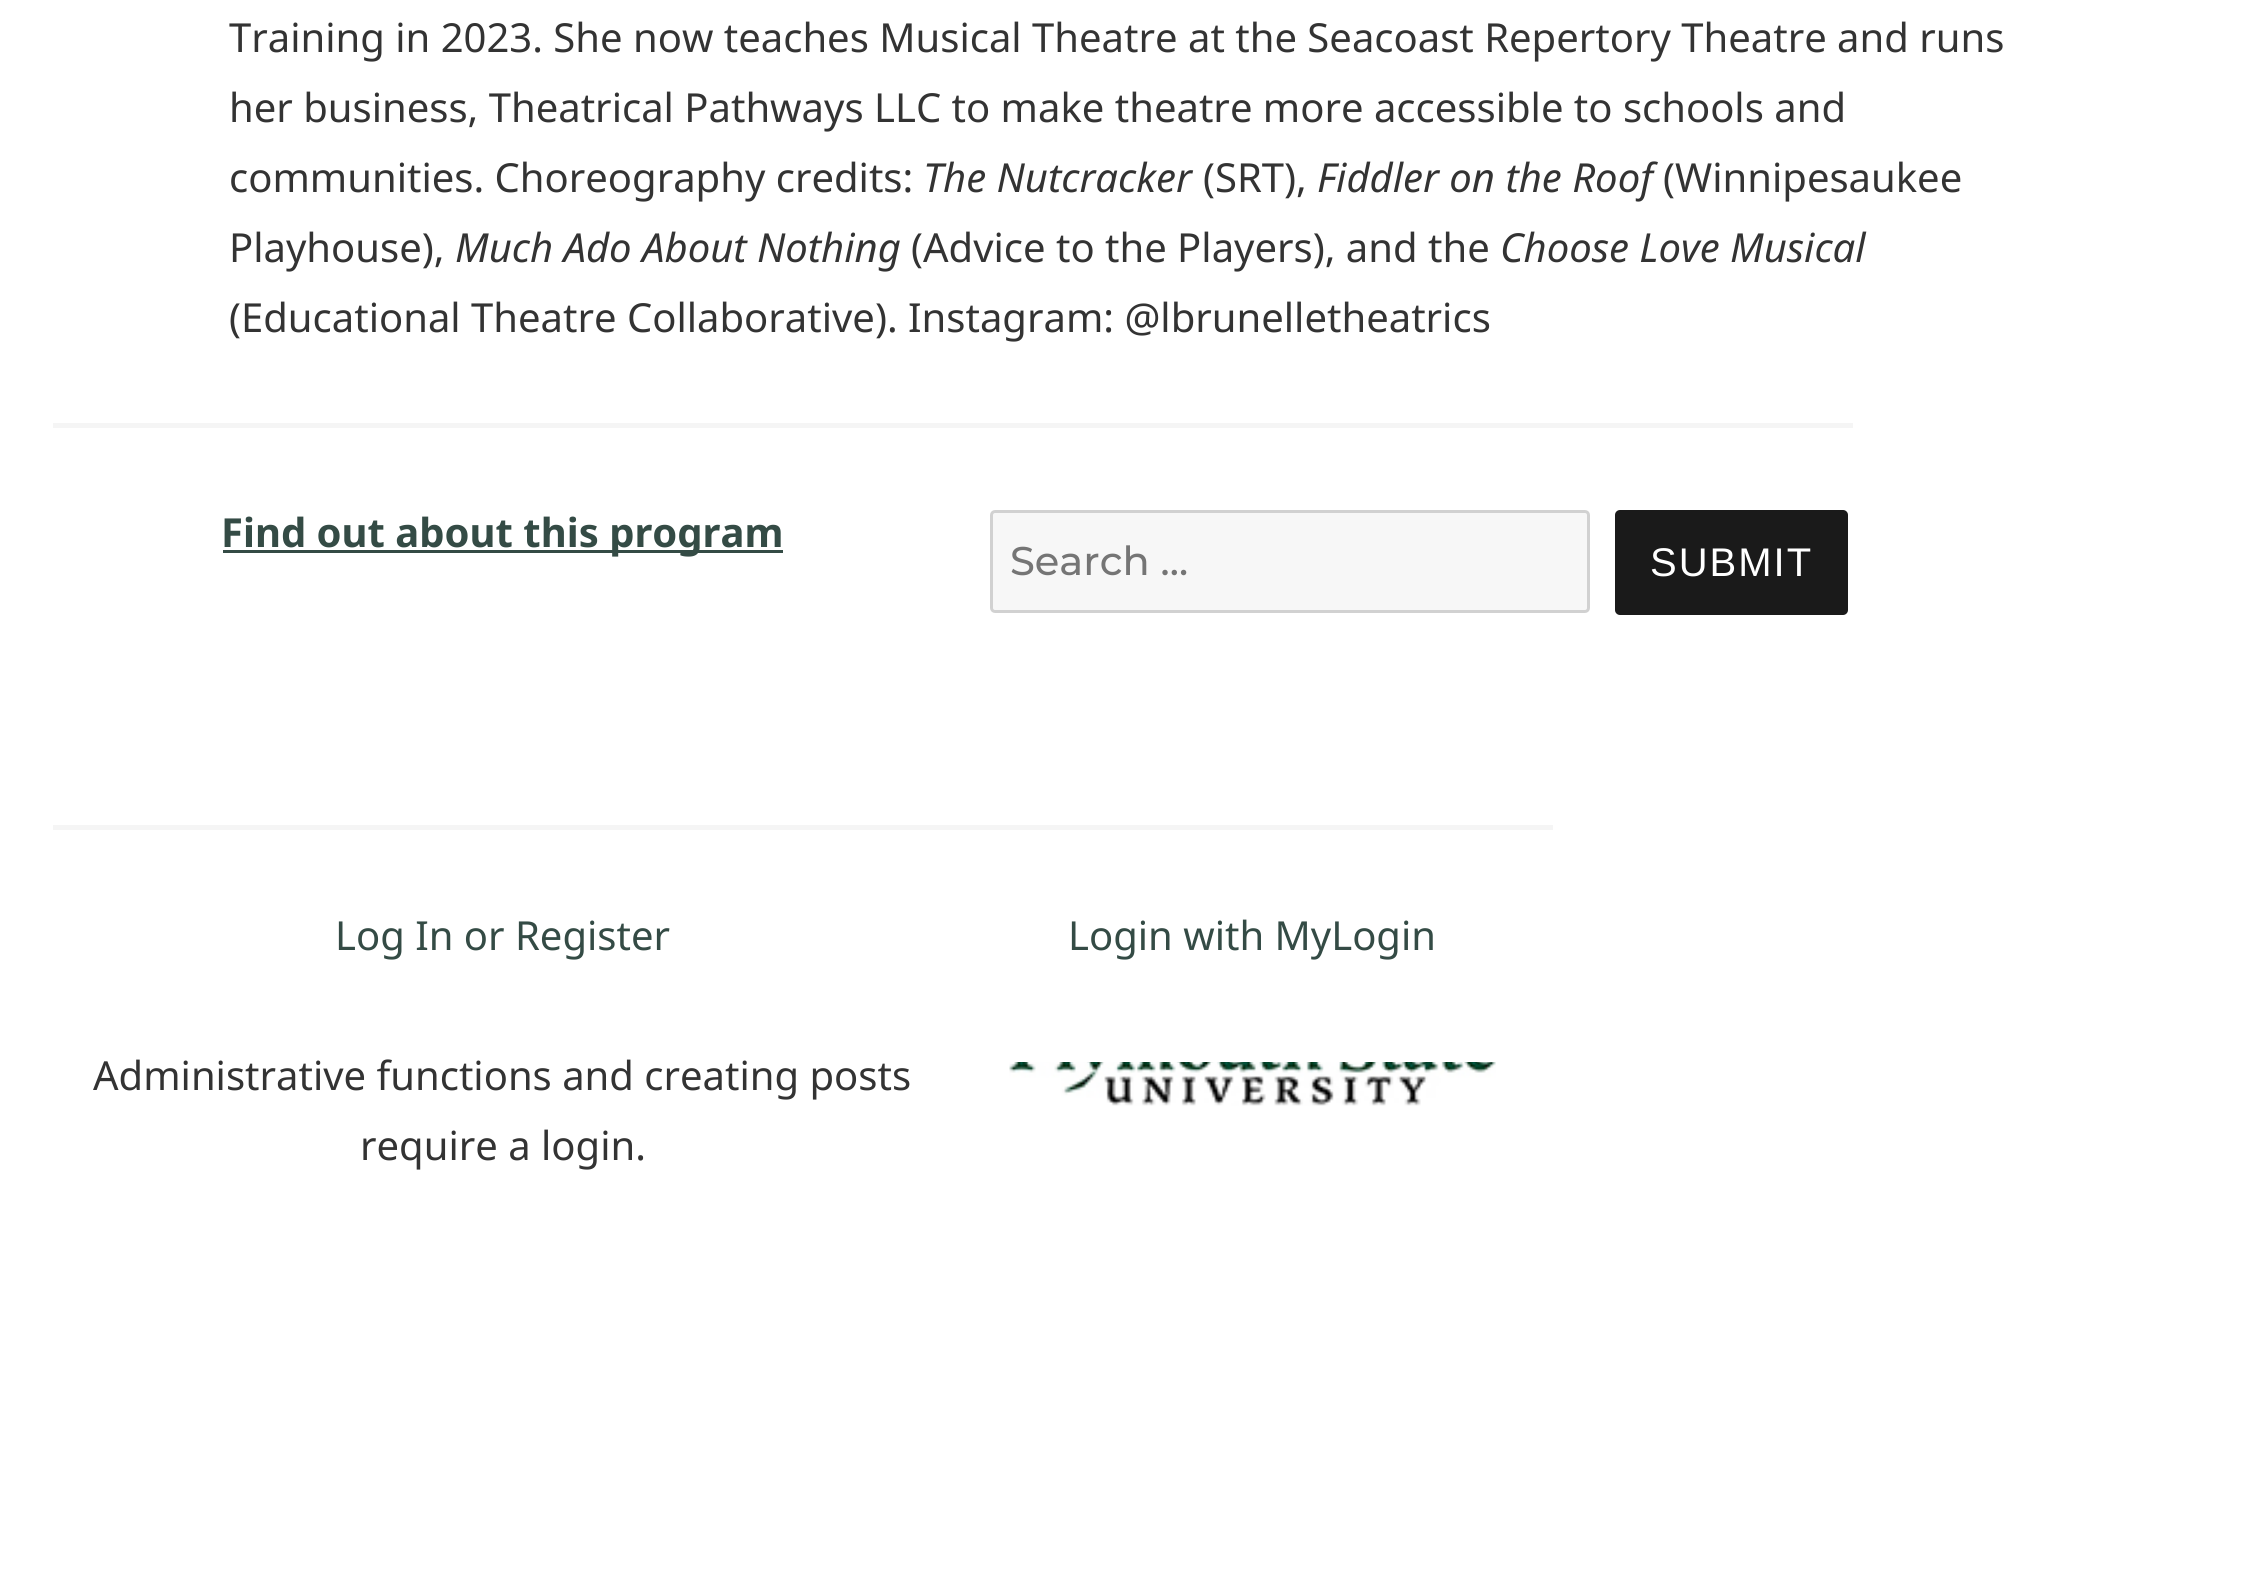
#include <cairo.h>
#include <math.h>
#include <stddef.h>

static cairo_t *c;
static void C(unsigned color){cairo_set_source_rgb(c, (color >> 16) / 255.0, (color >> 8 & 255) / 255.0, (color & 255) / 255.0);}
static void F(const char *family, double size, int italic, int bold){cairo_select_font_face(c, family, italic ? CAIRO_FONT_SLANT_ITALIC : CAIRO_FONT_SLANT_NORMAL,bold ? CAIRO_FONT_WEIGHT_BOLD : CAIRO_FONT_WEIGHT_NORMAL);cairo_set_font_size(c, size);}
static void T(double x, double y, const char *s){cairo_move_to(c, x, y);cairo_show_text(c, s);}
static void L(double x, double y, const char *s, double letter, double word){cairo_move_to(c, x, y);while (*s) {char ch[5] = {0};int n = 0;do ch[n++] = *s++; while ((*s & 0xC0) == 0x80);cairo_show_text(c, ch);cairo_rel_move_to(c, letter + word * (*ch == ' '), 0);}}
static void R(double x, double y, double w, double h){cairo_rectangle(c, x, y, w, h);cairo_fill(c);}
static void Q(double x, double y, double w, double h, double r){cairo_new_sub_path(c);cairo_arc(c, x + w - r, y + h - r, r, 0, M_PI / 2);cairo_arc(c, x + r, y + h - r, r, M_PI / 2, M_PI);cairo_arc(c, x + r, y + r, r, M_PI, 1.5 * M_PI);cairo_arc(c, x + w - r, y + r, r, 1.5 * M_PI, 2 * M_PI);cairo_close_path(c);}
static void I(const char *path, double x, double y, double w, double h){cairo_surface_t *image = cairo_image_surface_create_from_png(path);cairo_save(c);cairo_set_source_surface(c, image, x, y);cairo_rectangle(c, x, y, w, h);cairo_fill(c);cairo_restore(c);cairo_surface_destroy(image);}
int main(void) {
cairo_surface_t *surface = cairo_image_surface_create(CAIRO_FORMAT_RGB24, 2257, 1575);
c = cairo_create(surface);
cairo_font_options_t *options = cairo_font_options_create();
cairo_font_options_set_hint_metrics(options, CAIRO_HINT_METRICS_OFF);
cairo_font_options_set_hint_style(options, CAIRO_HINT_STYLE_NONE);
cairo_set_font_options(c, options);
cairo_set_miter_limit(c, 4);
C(0xffffff);
cairo_paint(c);
F("Noto Sans",40,0,0);
C(0x333333);
T(229,52,"Training in 2023. She now teaches Musical Theatre at the Seacoast Repertory Theatre and runs");
T(229,122,"her business, Theatrical Pathways LLC to make theatre more accessible to schools and");
T(229,192,"communities. Choreography credits:");
F("Noto Sans",40,1,0);
T(923,192,"The Nutcracker");
F("Noto Sans",40,0,0);
T(1203,192,"(SRT),");
F("Noto Sans",40,1,0);
T(1317,192,"Fiddler on the Roof");
F("Noto Sans",40,0,0);
T(1663,192,"(Winnipesaukee");
T(229,262,"Playhouse),");
F("Noto Sans",40,1,0);
T(455,262,"Much Ado About Nothing");
F("Noto Sans",40,0,0);
T(911,262,"(Advice to the Players), and the");
F("Noto Sans",40,1,0);
T(1500,262,"Choose Love Musical");
F("Noto Sans",40,0,0);
T(229,332,"(Educational Theatre Collaborative). Instagram: @lbrunelletheatrics");
C(0xf5f5f5);
R(53,423,1800,5);
C(0x344b45);
R(223,550,560,3);
F("Noto Sans",40,0,1);
T(221,547,"Find out about this program");
C(0xf7f7f7);
Q(991.5,511.5,597,100,3.5);
cairo_fill_preserve(c);
C(0xd1d1d1);
cairo_set_line_width(c,3);
cairo_stroke(c);
F("Montserrat Medium",40,0,0);
C(0x757575);
T(1010,575,"Search …");
C(0x1a1a1a);
Q(1615,510,233,105,5);
cairo_fill(c);
F("Liberation Sans",40,0,0);
C(0xffffff);
L(1650,576,"SUBMIT",2,0);
C(0xf5f5f5);
R(53,825,1500,5);
F("Noto Sans",40,0,0);
C(0x344b45);
T(335,950,"Log In or Register");
C(0x333333);
T(93,1090,"Administrative functions and creating posts");
T(360,1160,"require a login.");
C(0x344b45);
T(1068,950,"Login with MyLogin");
I("1.png",1009,1062,487,44);
cairo_surface_write_to_png(surface, "o.png");
cairo_font_options_destroy(options);
cairo_destroy(c);
cairo_surface_destroy(surface);
return 0;
}
